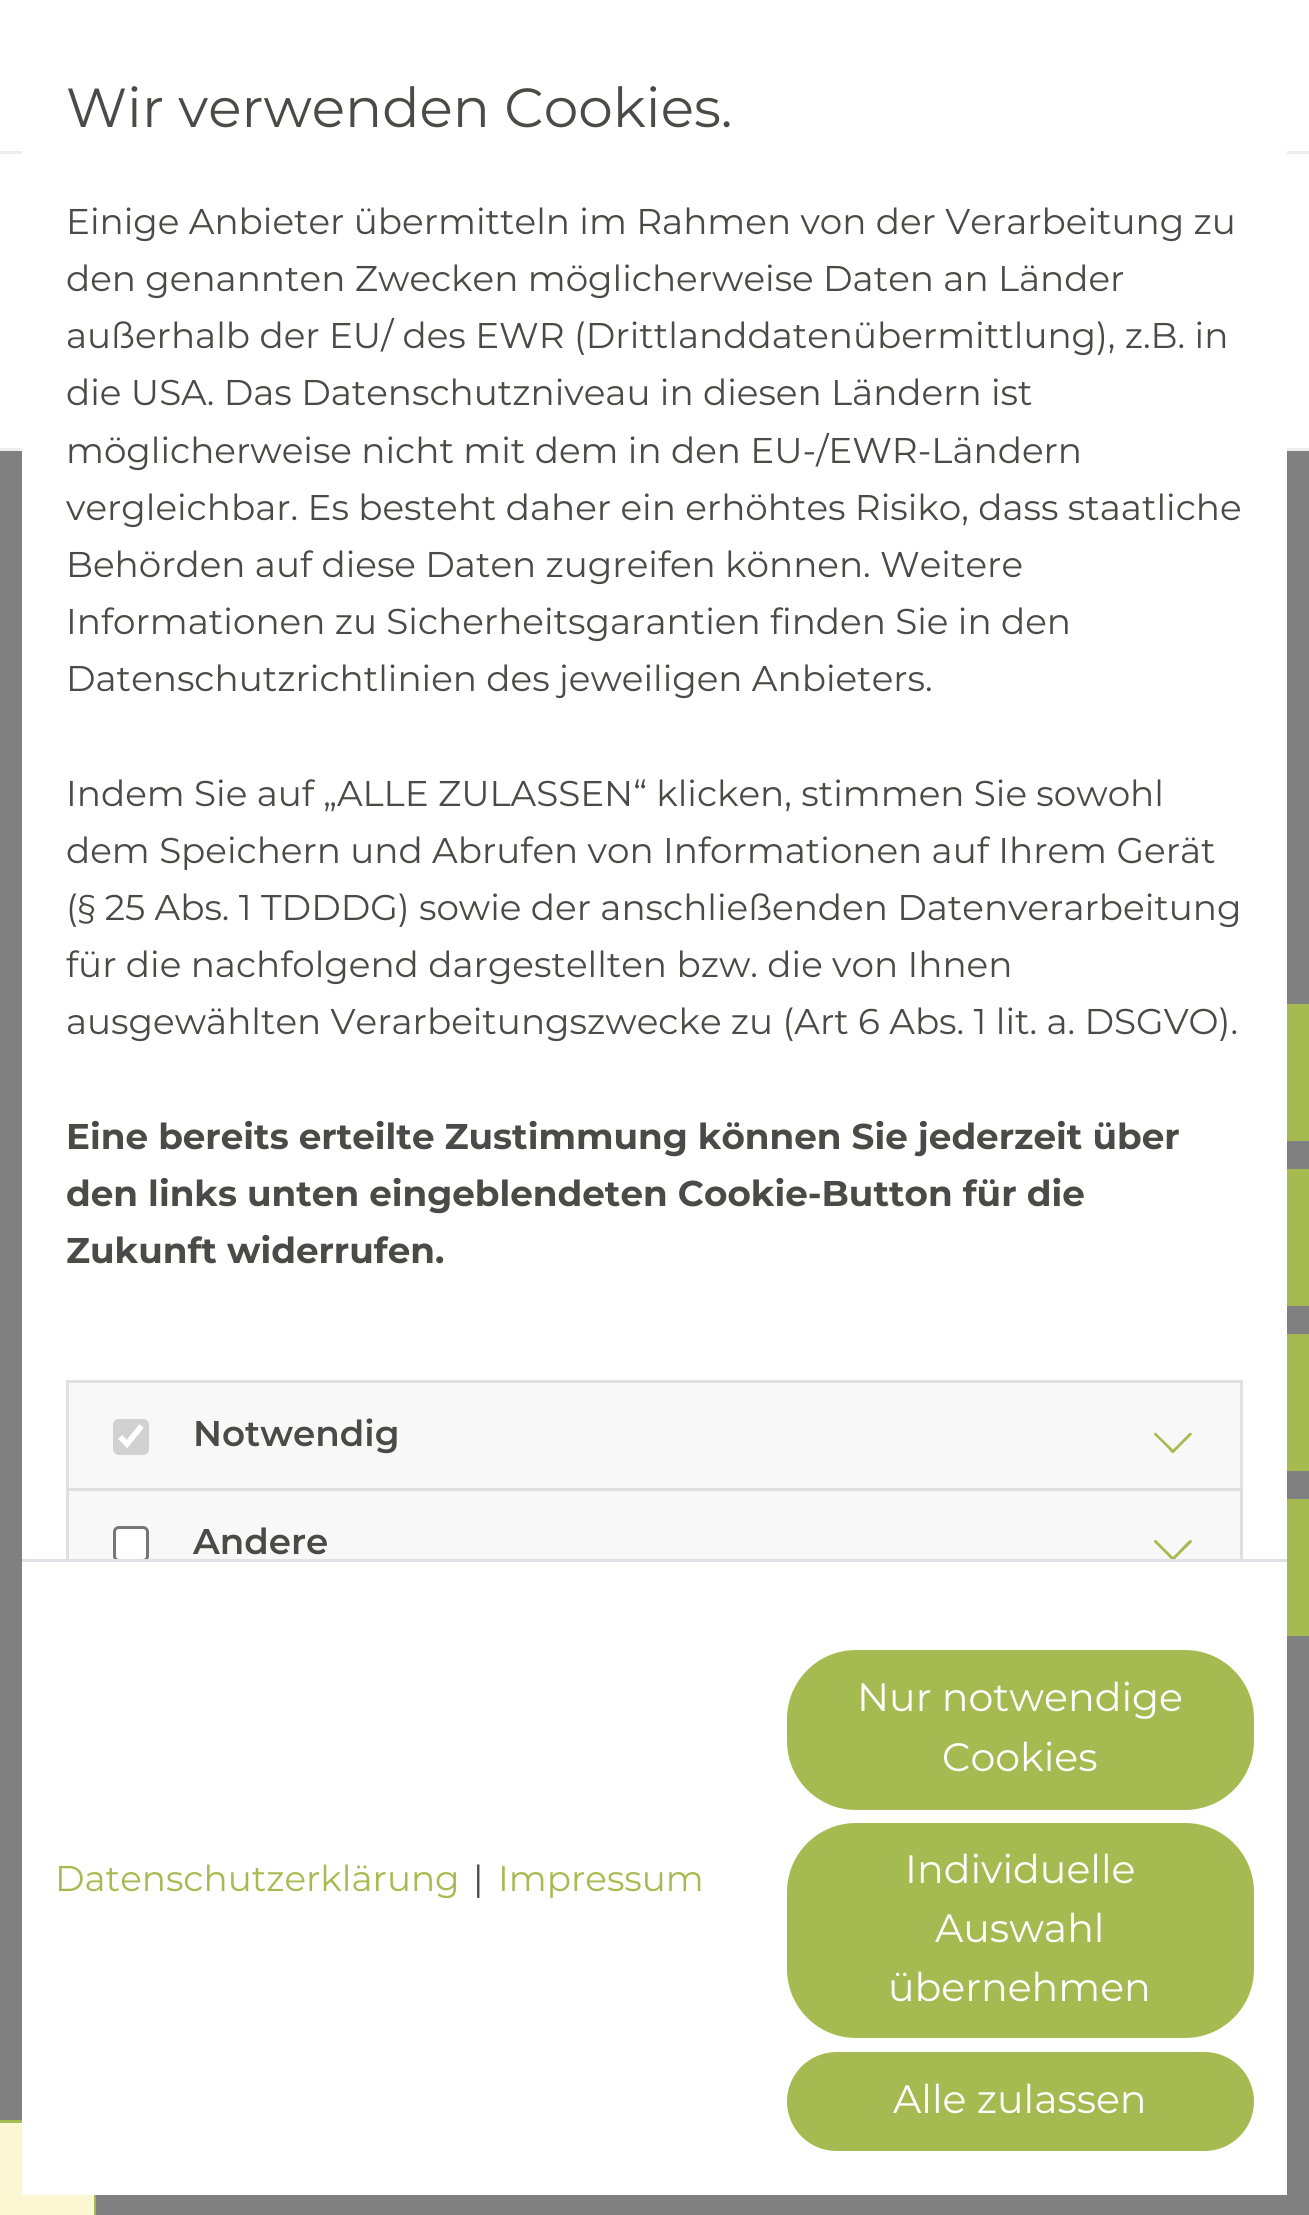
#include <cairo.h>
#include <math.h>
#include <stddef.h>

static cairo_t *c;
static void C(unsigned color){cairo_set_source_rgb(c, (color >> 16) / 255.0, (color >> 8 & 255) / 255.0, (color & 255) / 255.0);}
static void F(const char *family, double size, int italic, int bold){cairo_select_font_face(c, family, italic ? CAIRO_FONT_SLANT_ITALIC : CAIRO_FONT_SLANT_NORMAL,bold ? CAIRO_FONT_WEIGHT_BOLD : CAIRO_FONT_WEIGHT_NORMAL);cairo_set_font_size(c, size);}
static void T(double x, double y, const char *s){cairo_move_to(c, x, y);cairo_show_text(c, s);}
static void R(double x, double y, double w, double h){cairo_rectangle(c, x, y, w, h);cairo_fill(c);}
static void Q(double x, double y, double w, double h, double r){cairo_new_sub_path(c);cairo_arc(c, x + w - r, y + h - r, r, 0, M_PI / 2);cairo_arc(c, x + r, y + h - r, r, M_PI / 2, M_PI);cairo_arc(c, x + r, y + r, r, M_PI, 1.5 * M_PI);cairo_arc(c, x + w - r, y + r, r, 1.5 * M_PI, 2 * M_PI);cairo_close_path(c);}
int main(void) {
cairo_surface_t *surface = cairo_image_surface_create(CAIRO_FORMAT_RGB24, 1309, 2215);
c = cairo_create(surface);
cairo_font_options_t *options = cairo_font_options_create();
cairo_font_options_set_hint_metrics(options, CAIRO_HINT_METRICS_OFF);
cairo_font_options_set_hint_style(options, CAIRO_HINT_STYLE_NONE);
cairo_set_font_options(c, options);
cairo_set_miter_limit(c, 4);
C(0x808080);
cairo_paint(c);
C(0xffffff);
R(0,0,1309,151);
C(0xededed);
R(0,151,1309,3);
C(0xffffff);
R(0,154,1309,294);
C(0xededed);
R(0,448,1309,3);
C(0xa5bb52);
R(1287,1004,22,137);
R(1287,1169,22,137);
R(1287,1334,22,137);
R(1287,1499,22,137);
C(0xfbf7d2);
R(0,2123,94,92);
C(0xa5bb52);
cairo_set_fill_rule(c,CAIRO_FILL_RULE_EVEN_ODD);
cairo_new_path(c);
cairo_move_to(c,0,2120);
cairo_line_to(c,85,2120);
cairo_curve_to(c,91,2120,96,2125,96,2131);
cairo_line_to(c,96,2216);
cairo_line_to(c,0,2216);
cairo_close_path(c);
cairo_move_to(c,0,2123);
cairo_line_to(c,85,2123);
cairo_curve_to(c,90,2123,94,2127,94,2131);
cairo_line_to(c,94,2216);
cairo_line_to(c,0,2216);
cairo_close_path(c);
cairo_fill(c);
C(0xffffff);
R(22,151,1265,2044);
F("Montserrat",55,0,0);
C(0x4a4a49);
T(66,127,"Wir verwenden Cookies.");
F("Montserrat",35.75,0,0);
T(66,234,"Einige Anbieter übermitteln im Rahmen von der Verarbeitung zu");
T(66,291,"den genannten Zwecken möglicherweise Daten an Länder");
T(66,348,"außerhalb der EU/ des EWR (Drittlanddatenübermittlung), z.B. in");
T(66,405,"die USA. Das Datenschutzniveau in diesen Ländern ist");
T(66,463,"möglicherweise nicht mit dem in den EU-/EWR-Ländern");
T(66,520,"vergleichbar. Es besteht daher ein erhöhtes Risiko, dass staatliche");
T(66,577,"Behörden auf diese Daten zugreifen können. Weitere");
T(66,634,"Informationen zu Sicherheitsgarantien finden Sie in den");
T(66,691,"Datenschutzrichtlinien des jeweiligen Anbieters.");
T(66,806,"Indem Sie auf „ALLE ZULASSEN“ klicken, stimmen Sie sowohl");
T(66,863,"dem Speichern und Abrufen von Informationen auf Ihrem Gerät");
T(66,920,"(§ 25 Abs. 1 TDDDG) sowie der anschließenden Datenverarbeitung");
T(66,977,"für die nachfolgend dargestellten bzw. die von Ihnen");
T(66,1034,"ausgewählten Verarbeitungszwecke zu (Art 6 Abs. 1 lit. a. DSGVO).");
F("Montserrat",35.75,0,1);
T(66,1149,"Eine bereits erteilte Zustimmung können Sie jederzeit über");
T(66,1206,"den links unten eingeblendeten Cookie-Button für die");
T(66,1263,"Zukunft widerrufen.");
C(0xdfdfdf);
cairo_set_fill_rule(c,CAIRO_FILL_RULE_WINDING);
cairo_new_path(c);
cairo_move_to(c,66,1380);
cairo_line_to(c,1243,1380);
cairo_line_to(c,1240,1383);
cairo_line_to(c,69,1383);
cairo_close_path(c);
cairo_fill(c);
cairo_set_source_rgba(c,0,0,0,0.12);
cairo_new_path(c);
cairo_move_to(c,1243,1380);
cairo_line_to(c,1243,1488);
cairo_line_to(c,1240,1488);
cairo_line_to(c,1240,1383);
cairo_close_path(c);
cairo_fill(c);
cairo_new_path(c);
cairo_move_to(c,66,1488);
cairo_line_to(c,66,1380);
cairo_line_to(c,69,1383);
cairo_line_to(c,69,1488);
cairo_close_path(c);
cairo_fill(c);
C(0xf8f8f8);
R(69,1383,1171,105);
C(0xd1d1d1);
Q(113,1419,36,36,6);
cairo_fill(c);
cairo_new_path(c);
cairo_move_to(c,120,1437);
cairo_line_to(c,127,1444);
cairo_line_to(c,141.5,1426);
C(0xffffff);
cairo_set_line_width(c,5.7);
cairo_stroke(c);
F("Montserrat SemiBold",35.75,0,0);
C(0x4a4a49);
T(193,1446,"Notwendig");
C(0xa5bb52);
cairo_new_path(c);
cairo_move_to(c,1174,1452.5);
cairo_curve_to(c,1172,1454.5,1169.5,1450.5,1169,1449.5);
cairo_line_to(c,1154,1434.5);
cairo_curve_to(c,1153.5,1433.5,1155,1432,1156,1433);
cairo_line_to(c,1173,1449.5);
cairo_line_to(c,1186.5,1436);
cairo_curve_to(c,1187,1435.5,1190,1431,1191.5,1433.5);
cairo_line_to(c,1192,1434.5);
cairo_close_path(c);
cairo_fill(c);
C(0xdee2e6);
R(22,1559,1265,3);
cairo_save(c);
cairo_rectangle(c,22,193,1265,1366);
cairo_clip(c);
cairo_rectangle(c,67.5,1489.5,1174,107);
C(0xdfdfdf);
cairo_set_line_width(c,3);
cairo_stroke(c);
cairo_restore(c);
C(0xf8f8f8);
R(69,1491,1171,68);
cairo_save(c);
cairo_rectangle(c,22,193,1265,1366);
cairo_clip(c);
C(0xffffff);
Q(113,1526,36,36,6);
cairo_fill(c);
cairo_restore(c);
cairo_save(c);
cairo_rectangle(c,69,1491,1171,68);
cairo_clip(c);
Q(114.5,1527.5,33,33,4.5);
C(0x767676);
cairo_set_line_width(c,3);
cairo_stroke(c);
cairo_restore(c);
C(0x4a4a49);
T(193,1554,"Andere");
cairo_save(c);
cairo_rectangle(c,69,1491,1171,68);
cairo_clip(c);
C(0xa5bb52);
cairo_new_path(c);
cairo_move_to(c,1174,1560);
cairo_curve_to(c,1172,1561.5,1169.5,1557.5,1169,1557);
cairo_line_to(c,1154,1542);
cairo_curve_to(c,1153.5,1540.5,1155,1539.5,1156,1540);
cairo_line_to(c,1173,1557);
cairo_line_to(c,1186.5,1543);
cairo_curve_to(c,1187,1542.5,1190,1538.5,1191.5,1540.5);
cairo_line_to(c,1192,1542);
cairo_close_path(c);
cairo_fill(c);
cairo_restore(c);
F("Montserrat",35.75,0,0);
C(0xa5bb52);
T(55,1891,"Datenschutzerklärung");
C(0x4a4a49);
T(473,1891,"|");
C(0xa5bb52);
T(498,1891,"Impressum");
Q(788.5,1651.5,464,157,67.5);
cairo_fill_preserve(c);
cairo_set_line_width(c,3);
cairo_stroke(c);
F("Montserrat",39.5,0,0);
C(0xffffff);
T(857,1711,"Nur notwendige");
T(942,1771,"Cookies");
C(0xa5bb52);
Q(788.5,1824.5,464,212,67.5);
cairo_fill_preserve(c);
cairo_stroke(c);
C(0xffffff);
T(905,1883,"Individuelle");
T(935,1942,"Auswahl");
T(888,2001,"übernehmen");
C(0xa5bb52);
Q(788.5,2053.5,464,96,48);
cairo_fill_preserve(c);
cairo_stroke(c);
C(0xffffff);
T(893,2113,"Alle zulassen");
cairo_surface_write_to_png(surface, "o.png");
cairo_font_options_destroy(options);
cairo_destroy(c);
cairo_surface_destroy(surface);
return 0;
}
